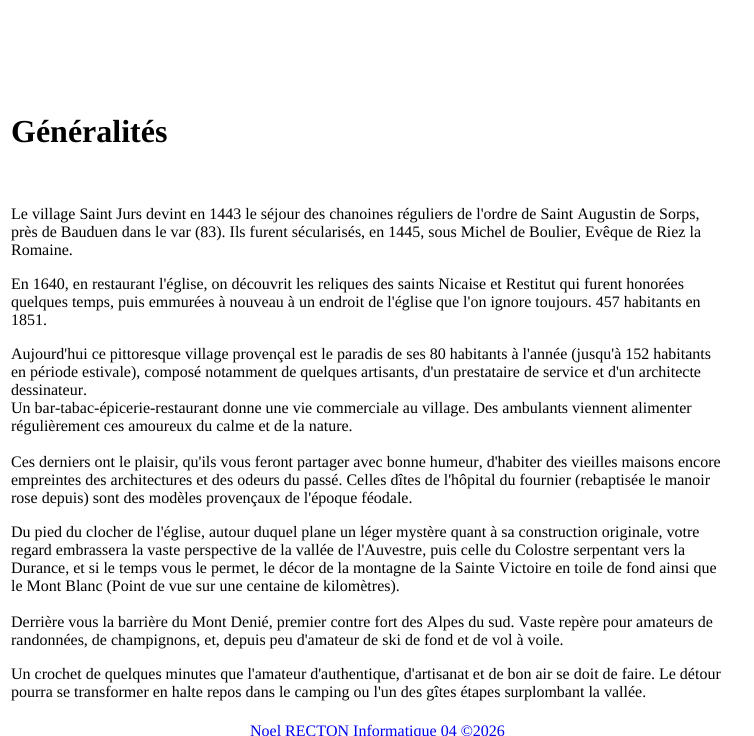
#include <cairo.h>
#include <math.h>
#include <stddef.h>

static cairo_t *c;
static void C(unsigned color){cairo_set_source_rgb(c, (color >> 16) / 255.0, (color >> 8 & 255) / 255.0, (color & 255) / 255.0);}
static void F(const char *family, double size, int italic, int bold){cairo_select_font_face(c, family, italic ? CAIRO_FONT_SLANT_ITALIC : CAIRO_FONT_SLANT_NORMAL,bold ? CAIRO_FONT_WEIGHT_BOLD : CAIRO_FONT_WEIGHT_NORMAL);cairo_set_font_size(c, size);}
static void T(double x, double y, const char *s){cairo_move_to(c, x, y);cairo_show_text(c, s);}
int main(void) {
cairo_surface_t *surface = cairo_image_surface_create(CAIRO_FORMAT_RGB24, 754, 736);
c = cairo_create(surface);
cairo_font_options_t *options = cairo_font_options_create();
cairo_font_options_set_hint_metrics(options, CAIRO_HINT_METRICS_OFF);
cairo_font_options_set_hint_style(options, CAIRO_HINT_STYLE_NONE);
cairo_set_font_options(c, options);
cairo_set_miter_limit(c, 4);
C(0xffffff);
cairo_paint(c);
F("Liberation Serif",32,0,1);
C(0x000000);
T(11,142,"Généralités");
F("Liberation Serif",16,0,0);
T(11,219,"Le village Saint Jurs devint en 1443 le séjour des chanoines réguliers de l'ordre de Saint Augustin de Sorps,");
T(11,237,"près de Bauduen dans le var (83). Ils furent sécularisés, en 1445, sous Michel de Boulier, Evêque de Riez la");
T(11,255,"Romaine.");
T(11,289,"En 1640, en restaurant l'église, on découvrit les reliques des saints Nicaise et Restitut qui furent honorées");
T(11,307,"quelques temps, puis emmurées à nouveau à un endroit de l'église que l'on ignore toujours. 457 habitants en");
T(11,325,"1851.");
T(11,359,"Aujourd'hui ce pittoresque village provençal est le paradis de ses 80 habitants à l'année (jusqu'à 152 habitants");
T(11,377,"en période estivale), composé notamment de quelques artisants, d'un prestataire de service et d'un architecte");
T(11,395,"dessinateur.");
T(11,413,"Un bar-tabac-épicerie-restaurant donne une vie commerciale au village. Des ambulants viennent alimenter");
T(11,431,"régulièrement ces amoureux du calme et de la nature.");
T(11,467,"Ces derniers ont le plaisir, qu'ils vous feront partager avec bonne humeur, d'habiter des vieilles maisons encore");
T(11,485,"empreintes des architectures et des odeurs du passé. Celles dîtes de l'hôpital du fournier (rebaptisée le manoir");
T(11,503,"rose depuis) sont des modèles provençaux de l'époque féodale.");
T(11,537,"Du pied du clocher de l'église, autour duquel plane un léger mystère quant à sa construction originale, votre");
T(11,555,"regard embrassera la vaste perspective de la vallée de l'Auvestre, puis celle du Colostre serpentant vers la");
T(11,573,"Durance, et si le temps vous le permet, le décor de la montagne de la Sainte Victoire en toile de fond ainsi que");
T(11,591,"le Mont Blanc (Point de vue sur une centaine de kilomètres).");
T(11,627,"Derrière vous la barrière du Mont Denié, premier contre fort des Alpes du sud. Vaste repère pour amateurs de");
T(11,645,"randonnées, de champignons, et, depuis peu d'amateur de ski de fond et de vol à voile.");
T(11,679,"Un crochet de quelques minutes que l'amateur d'authentique, d'artisanat et de bon air se doit de faire. Le détour");
T(11,697,"pourra se transformer en halte repos dans le camping ou l'un des gîtes étapes surplombant la vallée.");
C(0x0000ee);
T(250,736,"Noel RECTON Informatique 04 ©2026");
cairo_surface_write_to_png(surface, "o.png");
cairo_font_options_destroy(options);
cairo_destroy(c);
cairo_surface_destroy(surface);
return 0;
}
